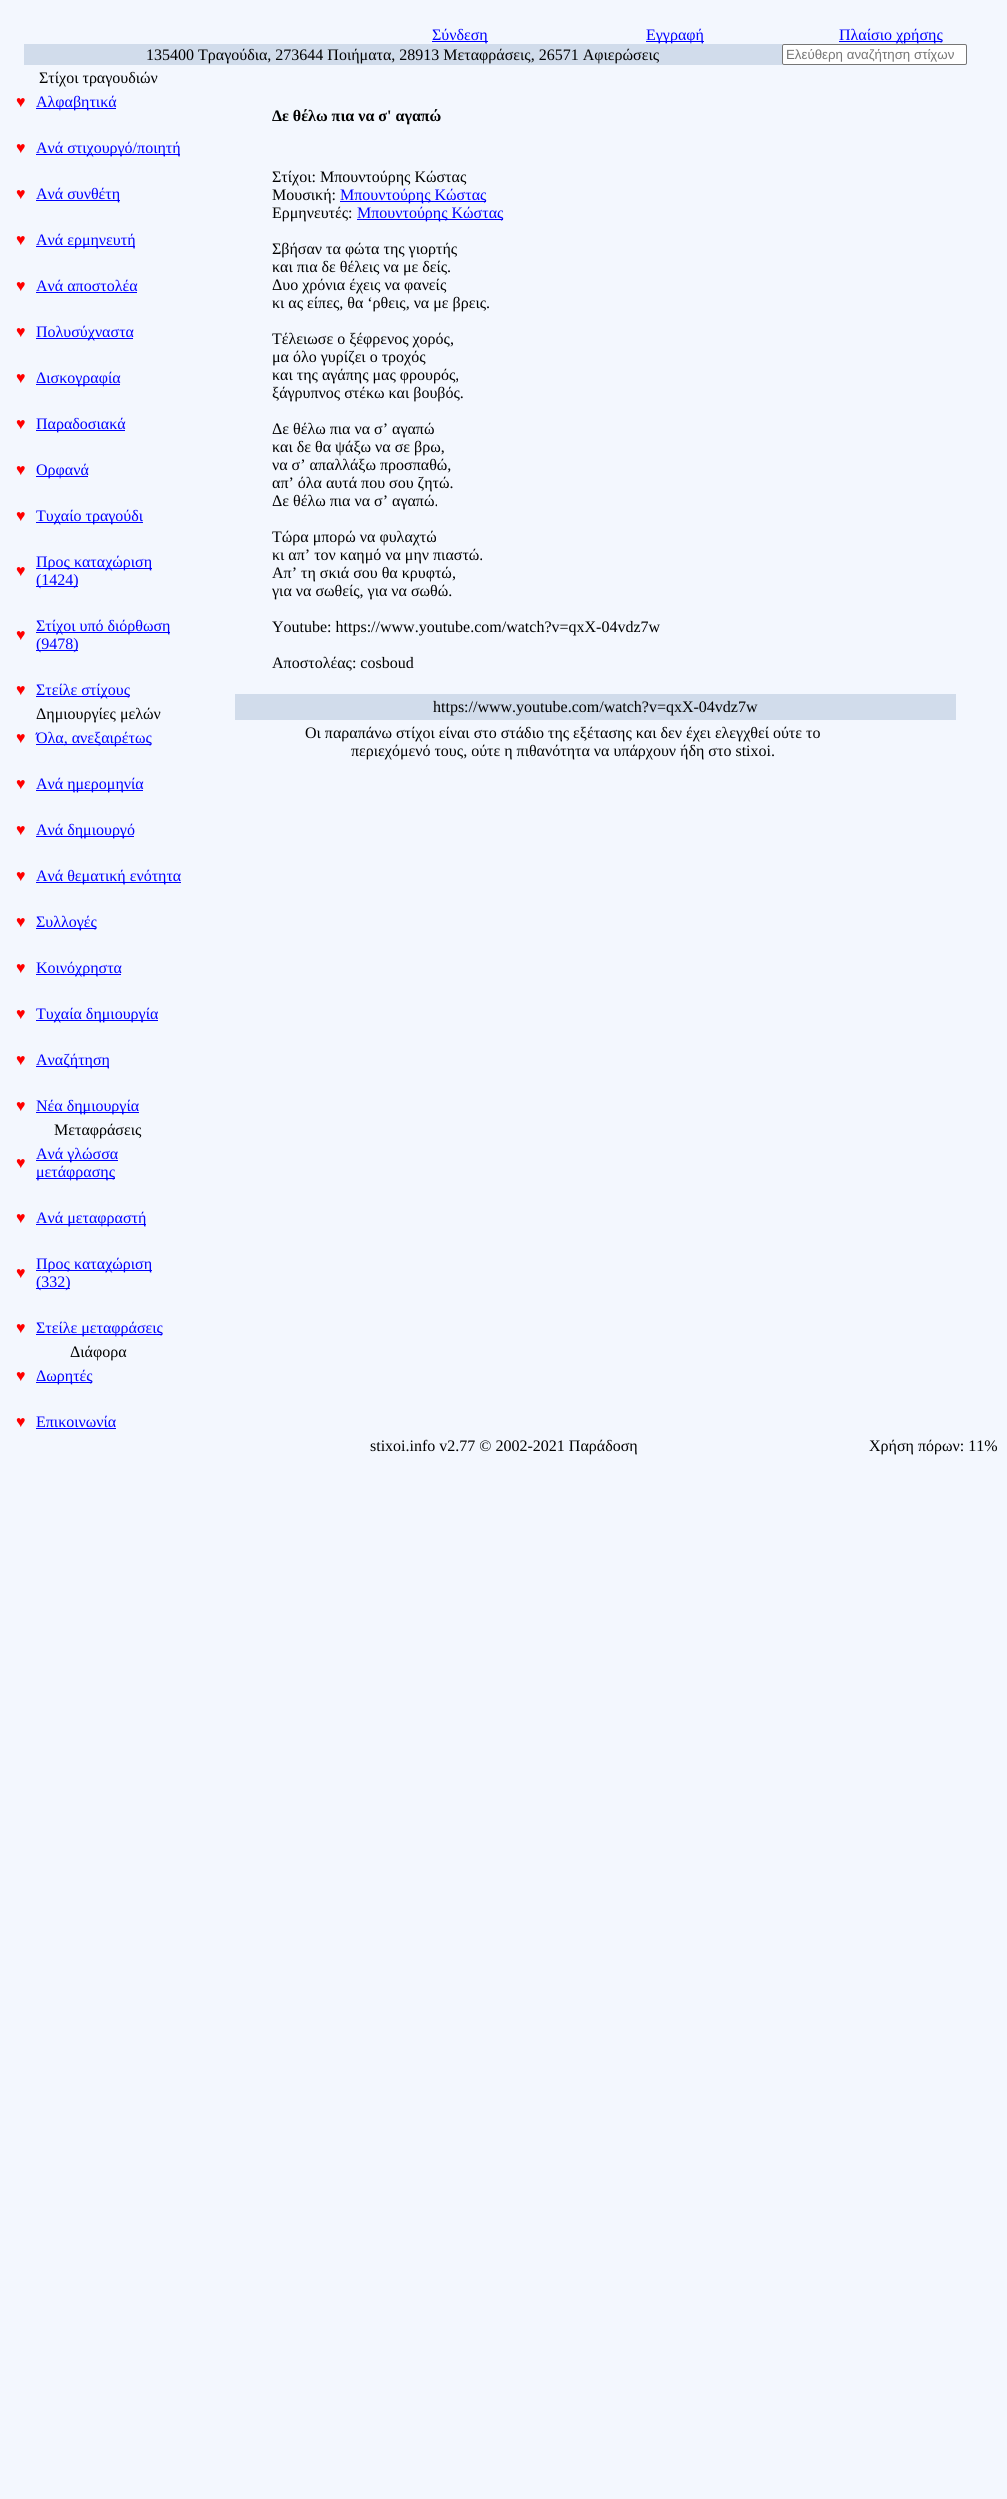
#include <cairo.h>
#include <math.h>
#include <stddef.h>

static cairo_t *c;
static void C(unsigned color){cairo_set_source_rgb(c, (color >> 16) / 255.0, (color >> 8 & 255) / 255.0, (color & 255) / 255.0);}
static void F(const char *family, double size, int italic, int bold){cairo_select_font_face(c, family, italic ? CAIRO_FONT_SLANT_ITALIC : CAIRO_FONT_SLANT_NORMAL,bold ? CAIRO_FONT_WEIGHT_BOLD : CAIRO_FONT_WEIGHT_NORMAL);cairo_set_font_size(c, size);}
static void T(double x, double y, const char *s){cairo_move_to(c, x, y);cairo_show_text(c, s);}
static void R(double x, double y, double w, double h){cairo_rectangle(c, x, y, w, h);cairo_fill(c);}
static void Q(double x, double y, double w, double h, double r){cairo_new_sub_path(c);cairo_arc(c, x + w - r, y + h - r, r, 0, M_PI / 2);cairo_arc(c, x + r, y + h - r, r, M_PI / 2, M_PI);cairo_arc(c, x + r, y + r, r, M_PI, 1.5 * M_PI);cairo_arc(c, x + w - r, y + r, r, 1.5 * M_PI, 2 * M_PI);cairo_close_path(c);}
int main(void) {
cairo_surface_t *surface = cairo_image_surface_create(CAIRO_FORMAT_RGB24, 1007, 2499);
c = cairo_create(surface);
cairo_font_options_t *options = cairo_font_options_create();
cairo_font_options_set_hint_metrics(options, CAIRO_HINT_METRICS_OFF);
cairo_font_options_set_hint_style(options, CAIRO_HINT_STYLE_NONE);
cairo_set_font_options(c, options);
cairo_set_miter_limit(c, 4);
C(0xf3f7fe);
cairo_paint(c);
C(0x0000ff);
R(432,41,56,1);
F("Liberation Serif",16,0,0);
T(432,40,"Σύνδεση");
R(646,41,58,1);
T(646,40,"Εγγραφή");
R(839,41,103,1);
T(839,40,"Πλαίσιο χρήσης");
C(0xd1dceb);
R(24,44,758,21);
C(0x000000);
T(146,60,"135400 Τραγούδια, 273644 Ποιήματα, 28913 Μεταφράσεις, 26571 Αφιερώσεις");
C(0xffffff);
Q(782.5,44.5,184,20,1.5);
cairo_fill_preserve(c);
C(0x767676);
cairo_set_line_width(c,1);
cairo_stroke(c);
F("Liberation Sans",13.3,0,0);
C(0x757575);
T(786,59,"Ελεύθερη αναζήτηση στίχων");
F("Liberation Serif",16,0,0);
C(0x000000);
T(39,83,"Στίχοι τραγουδιών");
F("Liberation Serif",16,0,1);
C(0xff0000);
T(16,107,"♥");
C(0x0000ff);
R(36,108,80,1);
F("Liberation Serif",16,0,0);
T(36,107,"Αλφαβητικά");
F("Liberation Serif",16,0,1);
C(0xff0000);
T(16,153,"♥");
C(0x0000ff);
R(36,154,144,1);
F("Liberation Serif",16,0,0);
T(36,153,"Ανά στιχουργό/ποιητή");
F("Liberation Serif",16,0,1);
C(0xff0000);
T(16,199,"♥");
C(0x0000ff);
R(36,200,84,1);
F("Liberation Serif",16,0,0);
T(36,199,"Ανά συνθέτη");
F("Liberation Serif",16,0,1);
C(0xff0000);
T(16,245,"♥");
C(0x0000ff);
R(36,246,99,1);
F("Liberation Serif",16,0,0);
T(36,245,"Ανά ερμηνευτή");
F("Liberation Serif",16,0,1);
C(0xff0000);
T(16,291,"♥");
F("Liberation Serif",16,0,0);
C(0x0000ff);
T(36,291,"Ανά αποστολέα");
R(36,292,101,1);
F("Liberation Serif",16,0,1);
C(0xff0000);
T(16,337,"♥");
C(0x0000ff);
R(36,338,97,1);
F("Liberation Serif",16,0,0);
T(36,337,"Πολυσύχναστα");
F("Liberation Serif",16,0,1);
C(0xff0000);
T(16,383,"♥");
C(0x0000ff);
R(36,384,84,1);
F("Liberation Serif",16,0,0);
T(36,383,"Δισκογραφία");
F("Liberation Serif",16,0,1);
C(0xff0000);
T(16,429,"♥");
C(0x0000ff);
R(36,430,89,1);
F("Liberation Serif",16,0,0);
T(36,429,"Παραδοσιακά");
F("Liberation Serif",16,0,1);
C(0xff0000);
T(16,475,"♥");
C(0x0000ff);
R(36,476,52,1);
F("Liberation Serif",16,0,0);
T(36,475,"Ορφανά");
F("Liberation Serif",16,0,1);
C(0xff0000);
T(16,521,"♥");
C(0x0000ff);
R(36,522,107,1);
F("Liberation Serif",16,0,0);
T(36,521,"Τυχαίο τραγούδι");
F("Liberation Serif",16,0,1);
C(0xff0000);
T(16,576,"♥");
C(0x0000ff);
R(36,568,116,1);
F("Liberation Serif",16,0,0);
T(36,567,"Προς καταχώριση");
R(36,586,42,1);
T(36,585,"(1424)");
F("Liberation Serif",16,0,1);
C(0xff0000);
T(16,640,"♥");
C(0x0000ff);
R(36,632,134,1);
F("Liberation Serif",16,0,0);
T(36,631,"Στίχοι υπό διόρθωση");
R(36,650,42,1);
T(36,649,"(9478)");
F("Liberation Serif",16,0,1);
C(0xff0000);
T(16,695,"♥");
C(0x0000ff);
R(36,696,93,1);
F("Liberation Serif",16,0,0);
T(36,695,"Στείλε στίχους");
C(0x000000);
T(36,719,"Δημιουργίες μελών");
F("Liberation Serif",16,0,1);
C(0xff0000);
T(16,743,"♥");
C(0x0000ff);
R(36,744,115,1);
F("Liberation Serif",16,0,0);
T(36,743,"Όλα, ανεξαιρέτως");
F("Liberation Serif",16,0,1);
C(0xff0000);
T(16,789,"♥");
C(0x0000ff);
R(36,790,107,1);
F("Liberation Serif",16,0,0);
T(36,789,"Ανά ημερομηνία");
F("Liberation Serif",16,0,1);
C(0xff0000);
T(16,835,"♥");
C(0x0000ff);
R(36,836,98,1);
F("Liberation Serif",16,0,0);
T(36,835,"Ανά δημιουργό");
F("Liberation Serif",16,0,1);
C(0xff0000);
T(16,881,"♥");
C(0x0000ff);
R(36,882,145,1);
F("Liberation Serif",16,0,0);
T(36,881,"Ανά θεματική ενότητα");
F("Liberation Serif",16,0,1);
C(0xff0000);
T(16,927,"♥");
C(0x0000ff);
R(36,928,60,1);
F("Liberation Serif",16,0,0);
T(36,927,"Συλλογές");
F("Liberation Serif",16,0,1);
C(0xff0000);
T(16,973,"♥");
C(0x0000ff);
R(36,974,85,1);
F("Liberation Serif",16,0,0);
T(36,973,"Κοινόχρηστα");
F("Liberation Serif",16,0,1);
C(0xff0000);
T(16,1019,"♥");
C(0x0000ff);
R(36,1020,122,1);
F("Liberation Serif",16,0,0);
T(36,1019,"Τυχαία δημιουργία");
F("Liberation Serif",16,0,1);
C(0xff0000);
T(16,1065,"♥");
C(0x0000ff);
R(36,1066,73,1);
F("Liberation Serif",16,0,0);
T(36,1065,"Αναζήτηση");
F("Liberation Serif",16,0,1);
C(0xff0000);
T(16,1111,"♥");
C(0x0000ff);
R(36,1112,103,1);
F("Liberation Serif",16,0,0);
T(36,1111,"Νέα δημιουργία");
C(0x000000);
T(54,1135,"Μεταφράσεις");
F("Liberation Serif",16,0,1);
C(0xff0000);
T(16,1168,"♥");
C(0x0000ff);
R(36,1160,82,1);
F("Liberation Serif",16,0,0);
T(36,1159,"Ανά γλώσσα");
R(36,1178,79,1);
T(36,1177,"μετάφρασης");
F("Liberation Serif",16,0,1);
C(0xff0000);
T(16,1223,"♥");
C(0x0000ff);
R(36,1224,110,1);
F("Liberation Serif",16,0,0);
T(36,1223,"Ανά μεταφραστή");
F("Liberation Serif",16,0,1);
C(0xff0000);
T(16,1278,"♥");
C(0x0000ff);
R(36,1270,116,1);
F("Liberation Serif",16,0,0);
T(36,1269,"Προς καταχώριση");
R(36,1288,34,1);
T(36,1287,"(332)");
F("Liberation Serif",16,0,1);
C(0xff0000);
T(16,1333,"♥");
C(0x0000ff);
R(36,1334,126,1);
F("Liberation Serif",16,0,0);
T(36,1333,"Στείλε μεταφράσεις");
C(0x000000);
T(70,1357,"Διάφορα");
F("Liberation Serif",16,0,1);
C(0xff0000);
T(16,1381,"♥");
C(0x0000ff);
R(36,1382,56,1);
F("Liberation Serif",16,0,0);
T(36,1381,"Δωρητές");
F("Liberation Serif",16,0,1);
C(0xff0000);
T(16,1427,"♥");
F("Liberation Serif",16,0,0);
C(0x0000ff);
T(36,1427,"Επικοινωνία");
R(36,1428,80,1);
F("Liberation Serif",16,0,1);
C(0x000000);
T(272,121,"Δε θέλω πια να σ' αγαπώ");
F("Liberation Serif",16,0,0);
T(272,182,"Στίχοι: Μπουντούρης Κώστας");
T(272,200,"Μουσική:");
C(0x0000ff);
R(340,201,146,1);
T(340,200,"Μπουντούρης Κώστας");
C(0x000000);
T(272,218,"Ερμηνευτές:");
C(0x0000ff);
R(357,219,146,1);
T(357,218,"Μπουντούρης Κώστας");
C(0x000000);
T(272,254,"Σβήσαν τα φώτα της γιορτής");
T(272,272,"και πια δε θέλεις να με δείς.");
T(272,290,"Δυο χρόνια έχεις να φανείς");
T(272,308,"κι ας είπες, θα ‘ρθεις, να με βρεις.");
T(272,344,"Τέλειωσε ο ξέφρενος χορός,");
T(272,362,"μα όλο γυρίζει ο τροχός");
T(272,380,"και της αγάπης μας φρουρός,");
T(272,398,"ξάγρυπνος στέκω και βουβός.");
T(272,434,"Δε θέλω πια να σ’ αγαπώ");
T(272,452,"και δε θα ψάξω να σε βρω,");
T(272,470,"να σ’ απαλλάξω προσπαθώ,");
T(272,488,"απ’ όλα αυτά που σου ζητώ.");
T(272,506,"Δε θέλω πια να σ’ αγαπώ.");
T(272,542,"Τώρα μπορώ να φυλαχτώ");
T(272,560,"κι απ’ τον καημό να μην πιαστώ.");
T(272,578,"Απ’ τη σκιά σου θα κρυφτώ,");
T(272,596,"για να σωθείς, για να σωθώ.");
T(272,632,"Youtube: https://www.youtube.com/watch?v=qxX-04vdz7w");
T(272,668,"Αποστολέας: cosboud");
C(0xd1dceb);
R(235,694,721,26);
C(0x000000);
T(433,712,"https://www.youtube.com/watch?v=qxX-04vdz7w");
T(305,738,"Οι παραπάνω στίχοι είναι στο στάδιο της εξέτασης και δεν έχει ελεγχθεί ούτε το");
T(351,756,"περιεχόμενό τους, ούτε η πιθανότητα να υπάρχουν ήδη στο stixoi.");
T(370,1451,"stixoi.info v2.77 © 2002-2021 Παράδοση");
T(869,1451,"Χρήση πόρων: 11%");
cairo_surface_write_to_png(surface, "o.png");
cairo_font_options_destroy(options);
cairo_destroy(c);
cairo_surface_destroy(surface);
return 0;
}
